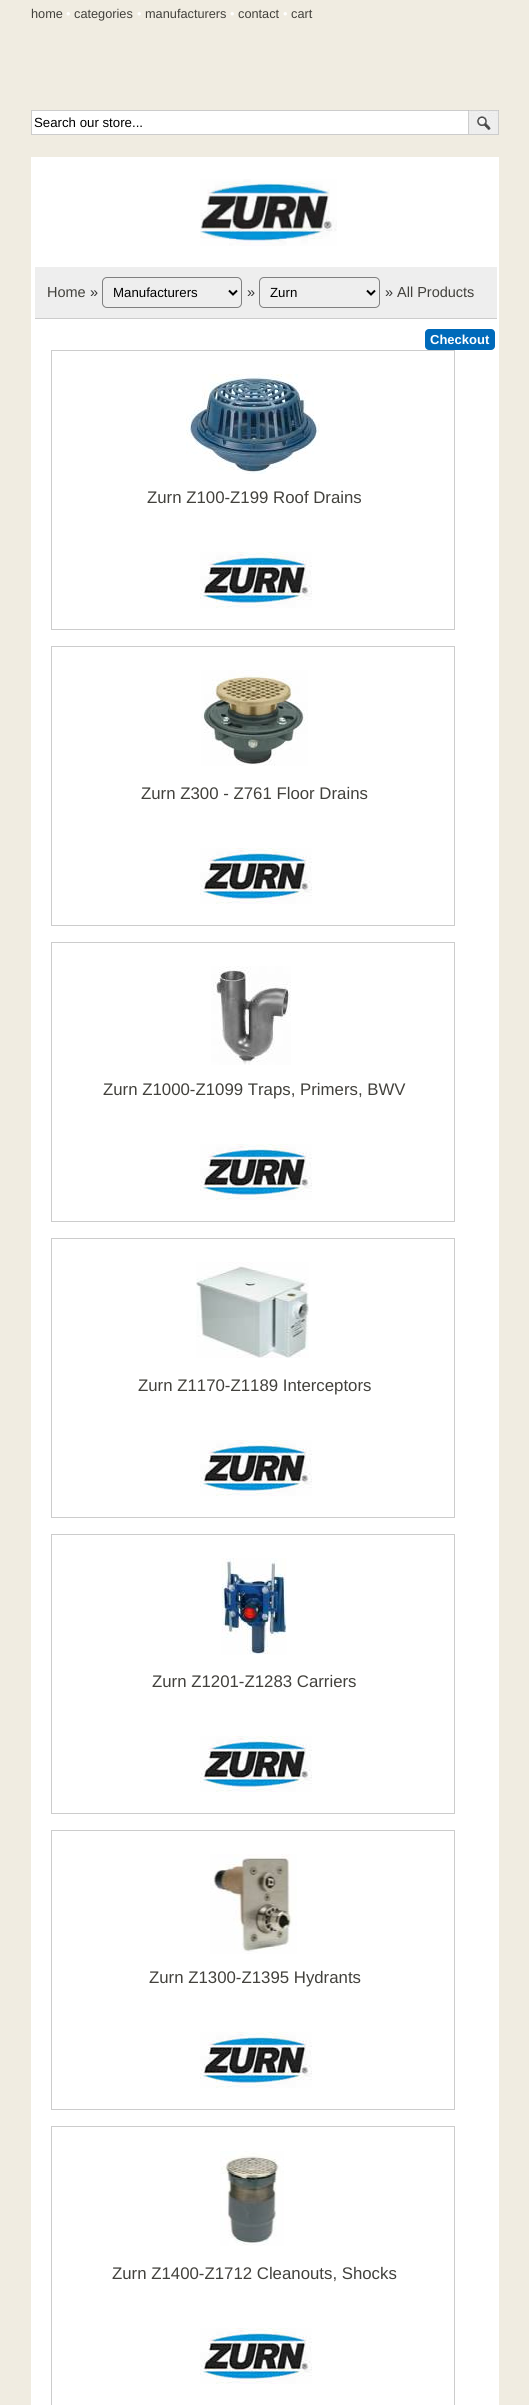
#include <cairo.h>
#include <math.h>
#include <stddef.h>

static cairo_t *c;
static void C(unsigned color){cairo_set_source_rgb(c, (color >> 16) / 255.0, (color >> 8 & 255) / 255.0, (color & 255) / 255.0);}
static void F(const char *family, double size, int italic, int bold){cairo_select_font_face(c, family, italic ? CAIRO_FONT_SLANT_ITALIC : CAIRO_FONT_SLANT_NORMAL,bold ? CAIRO_FONT_WEIGHT_BOLD : CAIRO_FONT_WEIGHT_NORMAL);cairo_set_font_size(c, size);}
static void T(double x, double y, const char *s){cairo_move_to(c, x, y);cairo_show_text(c, s);}
static void R(double x, double y, double w, double h){cairo_rectangle(c, x, y, w, h);cairo_fill(c);}
static void Q(double x, double y, double w, double h, double r){cairo_new_sub_path(c);cairo_arc(c, x + w - r, y + h - r, r, 0, M_PI / 2);cairo_arc(c, x + r, y + h - r, r, M_PI / 2, M_PI);cairo_arc(c, x + r, y + r, r, M_PI, 1.5 * M_PI);cairo_arc(c, x + w - r, y + r, r, 1.5 * M_PI, 2 * M_PI);cairo_close_path(c);}
static void I(const char *path, double x, double y, double w, double h){cairo_surface_t *image = cairo_image_surface_create_from_png(path);cairo_save(c);cairo_set_source_surface(c, image, x, y);cairo_rectangle(c, x, y, w, h);cairo_fill(c);cairo_restore(c);cairo_surface_destroy(image);}
int main(void) {
cairo_surface_t *surface = cairo_image_surface_create(CAIRO_FORMAT_RGB24, 529, 2405);
c = cairo_create(surface);
cairo_font_options_t *options = cairo_font_options_create();
cairo_font_options_set_hint_metrics(options, CAIRO_HINT_METRICS_OFF);
cairo_font_options_set_hint_style(options, CAIRO_HINT_STYLE_NONE);
cairo_set_font_options(c, options);
cairo_set_miter_limit(c, 4);
C(0xf0ece1);
cairo_paint(c);
F("Liberation Sans",12.75,0,0);
C(0x42413c);
T(31,18,"home");
C(0xffffff);
T(66,18,"•");
C(0x42413c);
T(74,18,"categories");
C(0xffffff);
T(137,18,"•");
C(0x42413c);
T(145,18,"manufacturers");
C(0xffffff);
T(230,18,"•");
C(0x42413c);
T(238,18,"contact");
C(0xffffff);
T(283,18,"•");
C(0x42413c);
T(291,18,"cart");
C(0xffffff);
R(32,111,436,23);
C(0xcccccc);
R(31,110,437,1);
R(31,134,437,1);
R(31,110,1,25);
F("Liberation Sans",13.25,0,0);
C(0x000000);
T(34,127,"Search our store...");
I("1.png",468,110,31,25);
C(0xffffff);
R(31,157,468,2248);
I("2.png",200,179,137,67);
C(0xeeeeee);
R(35,267,462,51);
C(0xcccccc);
R(35,318,462,1);
F("Liberation Sans",14.5,0,0);
C(0x42413c);
T(47,297,"Home");
C(0x333333);
T(90,297,"»");
Q(102.5,277.5,139,30,4.5);
C(0x808080);
cairo_set_line_width(c,1);
cairo_stroke(c);
cairo_new_path(c);
cairo_move_to(c,229,290.5);
cairo_line_to(c,233,294.5);
cairo_line_to(c,237,290.5);
C(0x000000);
cairo_set_line_width(c,2);
cairo_stroke(c);
F("Liberation Sans",13.25,0,0);
T(113,297,"Manufacturers");
F("Liberation Sans",14.5,0,0);
C(0x333333);
T(247,297,"»");
Q(259.5,277.5,120,30,4.5);
C(0x808080);
cairo_set_line_width(c,1);
cairo_stroke(c);
cairo_new_path(c);
cairo_move_to(c,367,290.5);
cairo_line_to(c,371,294.5);
cairo_line_to(c,375,290.5);
C(0x000000);
cairo_set_line_width(c,2);
cairo_stroke(c);
F("Liberation Sans",13.25,0,0);
T(270,297,"Zurn");
F("Liberation Sans",14.5,0,0);
C(0x333333);
T(385,297,"»");
C(0x42413c);
T(397,297,"All Products");
C(0x006aba);
Q(425,329,70,21,4);
cairo_fill(c);
F("Liberation Sans",13,0,1);
C(0xffffff);
T(430,344,"Checkout");
cairo_rectangle(c,51.5,350.5,403,279);
C(0xcccccc);
cairo_set_line_width(c,1);
cairo_stroke(c);
I("3.png",186,374,134,100);
F("Liberation Sans",16.8,0,0);
C(0x42413c);
T(147,503,"Zurn Z100-Z199 Roof Drains");
I("4.png",200,552,112,56);
cairo_rectangle(c,51.5,646.5,403,279);
C(0xcccccc);
cairo_stroke(c);
I("5.png",201,670,107,96);
C(0x42413c);
T(141,799,"Zurn Z300 - Z761 Floor Drains");
I("4.png",200,848,112,56);
cairo_rectangle(c,51.5,942.5,403,279);
C(0xcccccc);
cairo_stroke(c);
I("6.png",211,966,80,99);
C(0x42413c);
T(103,1095,"Zurn Z1000-Z1099 Traps, Primers, BWV");
I("4.png",200,1144,112,56);
cairo_rectangle(c,51.5,1238.5,403,279);
C(0xcccccc);
cairo_stroke(c);
I("7.png",196,1262,113,96);
C(0x42413c);
T(138,1391,"Zurn Z1170-Z1189 Interceptors");
I("4.png",200,1440,112,56);
cairo_rectangle(c,51.5,1534.5,403,279);
C(0xcccccc);
cairo_stroke(c);
I("8.png",221,1558,66,97);
C(0x42413c);
T(152,1687,"Zurn Z1201-Z1283 Carriers");
I("4.png",200,1736,112,56);
cairo_rectangle(c,51.5,1830.5,403,279);
C(0xcccccc);
cairo_stroke(c);
I("9.png",210,1854,87,100);
C(0x42413c);
T(149,1983,"Zurn Z1300-Z1395 Hydrants");
I("4.png",200,2032,112,56);
cairo_rectangle(c,51.5,2126.5,403,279);
C(0xcccccc);
cairo_stroke(c);
I("10.png",220,2151,64,95);
C(0x42413c);
T(112,2279,"Zurn Z1400-Z1712 Cleanouts, Shocks");
I("4.png",200,2328,112,56);
cairo_surface_write_to_png(surface, "o.png");
cairo_font_options_destroy(options);
cairo_destroy(c);
cairo_surface_destroy(surface);
return 0;
}
